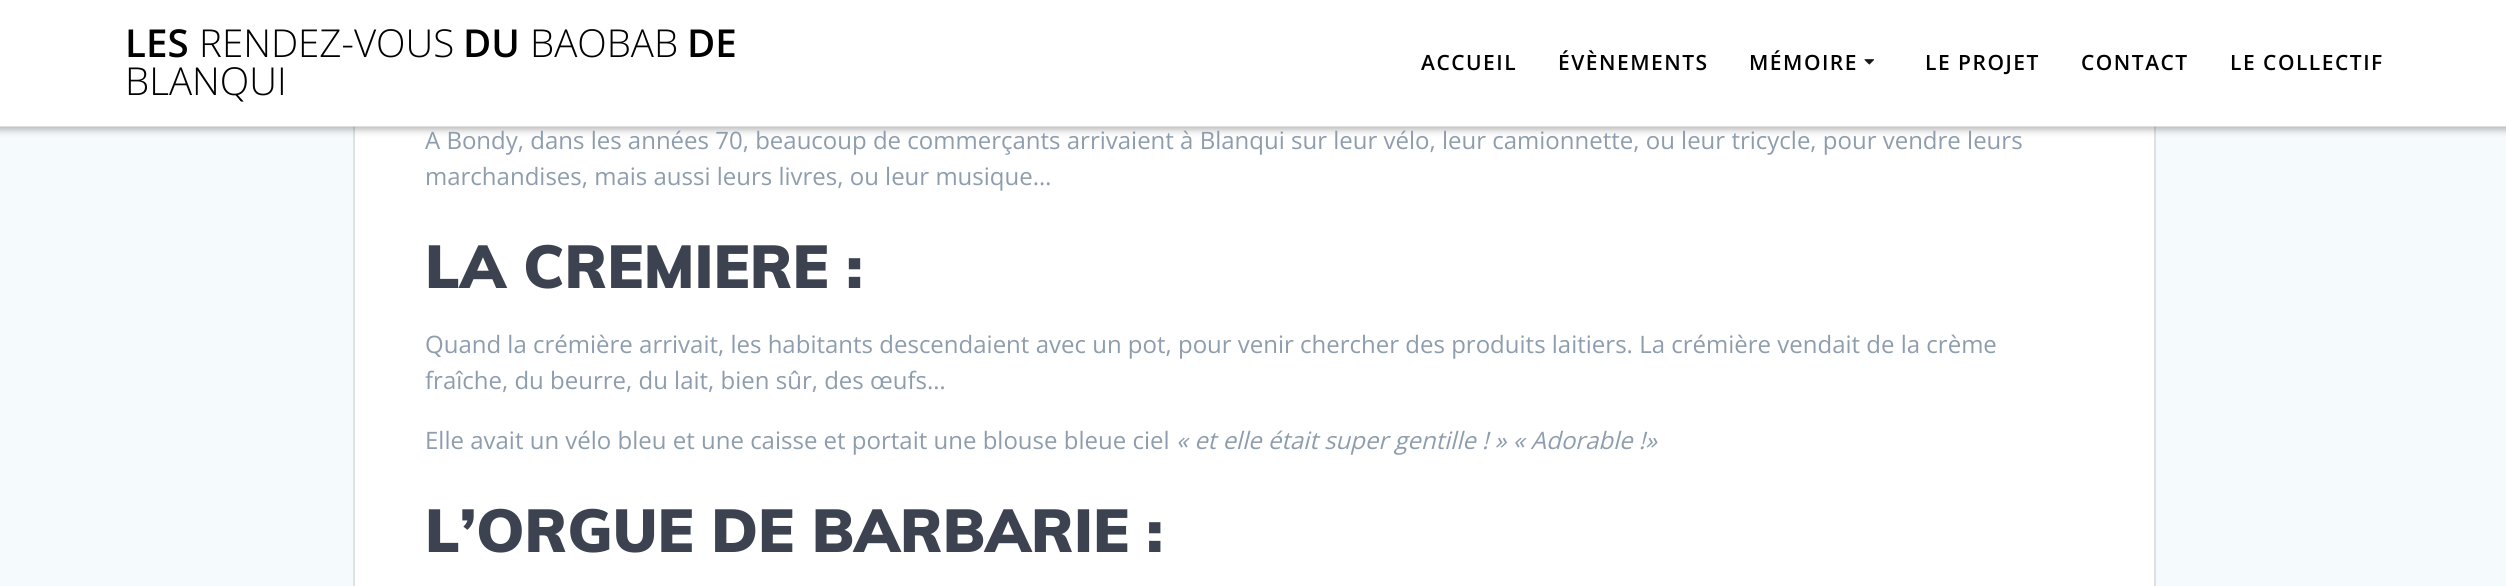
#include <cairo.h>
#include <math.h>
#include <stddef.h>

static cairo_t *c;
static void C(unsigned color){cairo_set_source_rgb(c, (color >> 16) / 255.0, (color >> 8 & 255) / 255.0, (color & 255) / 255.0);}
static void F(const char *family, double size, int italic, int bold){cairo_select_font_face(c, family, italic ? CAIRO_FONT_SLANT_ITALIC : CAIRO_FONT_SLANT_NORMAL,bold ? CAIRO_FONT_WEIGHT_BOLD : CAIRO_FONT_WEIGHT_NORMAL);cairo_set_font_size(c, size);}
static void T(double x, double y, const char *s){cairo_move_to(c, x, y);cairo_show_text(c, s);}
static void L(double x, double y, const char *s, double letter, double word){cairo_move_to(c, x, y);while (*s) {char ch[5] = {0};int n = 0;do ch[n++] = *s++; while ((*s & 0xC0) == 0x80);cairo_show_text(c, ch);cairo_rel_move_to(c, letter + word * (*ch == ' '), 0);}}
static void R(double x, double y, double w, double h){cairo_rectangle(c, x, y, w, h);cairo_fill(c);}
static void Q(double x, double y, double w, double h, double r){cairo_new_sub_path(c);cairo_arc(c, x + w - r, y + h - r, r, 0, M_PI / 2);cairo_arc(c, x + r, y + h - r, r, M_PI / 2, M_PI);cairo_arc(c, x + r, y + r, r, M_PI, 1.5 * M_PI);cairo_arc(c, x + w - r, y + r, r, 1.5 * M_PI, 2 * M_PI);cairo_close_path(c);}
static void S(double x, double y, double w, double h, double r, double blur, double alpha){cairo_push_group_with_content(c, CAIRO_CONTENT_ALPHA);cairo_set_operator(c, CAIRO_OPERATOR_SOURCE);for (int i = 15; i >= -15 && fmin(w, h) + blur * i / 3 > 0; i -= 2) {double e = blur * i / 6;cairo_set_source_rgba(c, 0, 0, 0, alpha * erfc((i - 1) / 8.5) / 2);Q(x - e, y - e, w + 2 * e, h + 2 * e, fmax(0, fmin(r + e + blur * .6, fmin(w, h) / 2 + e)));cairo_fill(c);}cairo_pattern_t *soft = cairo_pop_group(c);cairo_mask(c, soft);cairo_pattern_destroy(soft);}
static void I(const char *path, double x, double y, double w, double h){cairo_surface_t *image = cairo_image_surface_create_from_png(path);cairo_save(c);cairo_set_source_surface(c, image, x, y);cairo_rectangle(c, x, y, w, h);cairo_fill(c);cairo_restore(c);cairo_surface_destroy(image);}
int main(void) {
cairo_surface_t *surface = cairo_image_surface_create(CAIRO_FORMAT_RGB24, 2506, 586);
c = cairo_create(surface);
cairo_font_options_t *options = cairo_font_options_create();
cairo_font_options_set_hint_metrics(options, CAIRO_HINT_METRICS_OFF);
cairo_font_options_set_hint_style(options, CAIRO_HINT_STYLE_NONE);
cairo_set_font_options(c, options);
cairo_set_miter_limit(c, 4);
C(0xf5fafd);
cairo_paint(c);
C(0xffffff);
R(355,126,1799,460);
cairo_rectangle(c,354,-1,1801,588);
C(0xe0e1e1);
cairo_stroke(c);
C(0x000000);
S(-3,-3,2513,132,0,4,.33);
C(0xffffff);
R(0,0,2506,126);
cairo_set_source_rgba(c,1,1,1,0.5);
R(0,126,2506,1);
F("Open Sans SemiBold",38.5,0,0);
C(0x000000);
T(125,57,"LES");
F("Open Sans Light",38.5,0,0);
T(199,57,"RENDEZ-VOUS");
F("Open Sans SemiBold",38.5,0,0);
T(463,57,"DU");
F("Open Sans Light",38.5,0,0);
T(530,57,"BAOBAB");
F("Open Sans SemiBold",38.5,0,0);
T(687,57,"DE");
F("Open Sans Light",38.5,0,0);
T(125,95,"BLANQUI");
F("Open Sans SemiBold",21,0,0);
L(1421,70,"ACCUEIL",1.5,0);
L(1558,70,"ÉVÈNEMENTS",1.5,0);
L(1749,70,"MÉMOIRE",1.5,0);
I("1.png",1864,59,10,6);
L(1925,70,"LE PROJET",1.5,0);
L(2081,70,"CONTACT",1.5,0);
L(2230,70,"LE COLLECTIF",1.5,0);
F("Open Sans",24,0,0);
C(0x8e9dae);
T(425,149,"A Bondy, dans les années 70, beaucoup de commerçants arrivaient à Blanqui sur leur vélo, leur camionnette, ou leur tricycle, pour vendre leurs");
T(425,185,"marchandises, mais aussi leurs livres, ou leur musique…");
F("Muli Black",60,0,0);
C(0x3c424f);
T(425,288,"LA CREMIERE :");
F("Open Sans",24,0,0);
C(0x8e9dae);
T(425,353,"Quand la crémière arrivait, les habitants descendaient avec un pot, pour venir chercher des produits laitiers. La crémière vendait de la crème");
T(425,389,"fraîche, du beurre, du lait, bien sûr, des œufs…");
T(425,449,"Elle avait un vélo bleu et une caisse et portait une blouse bleue ciel");
F("Open Sans",24,1,0);
T(1176,449,"« et elle était super gentille ! » « Adorable !»");
F("Muli Black",60,0,0);
C(0x3c424f);
T(425,552,"L’ORGUE DE BARBARIE :");
cairo_surface_write_to_png(surface, "o.png");
cairo_font_options_destroy(options);
cairo_destroy(c);
cairo_surface_destroy(surface);
return 0;
}
